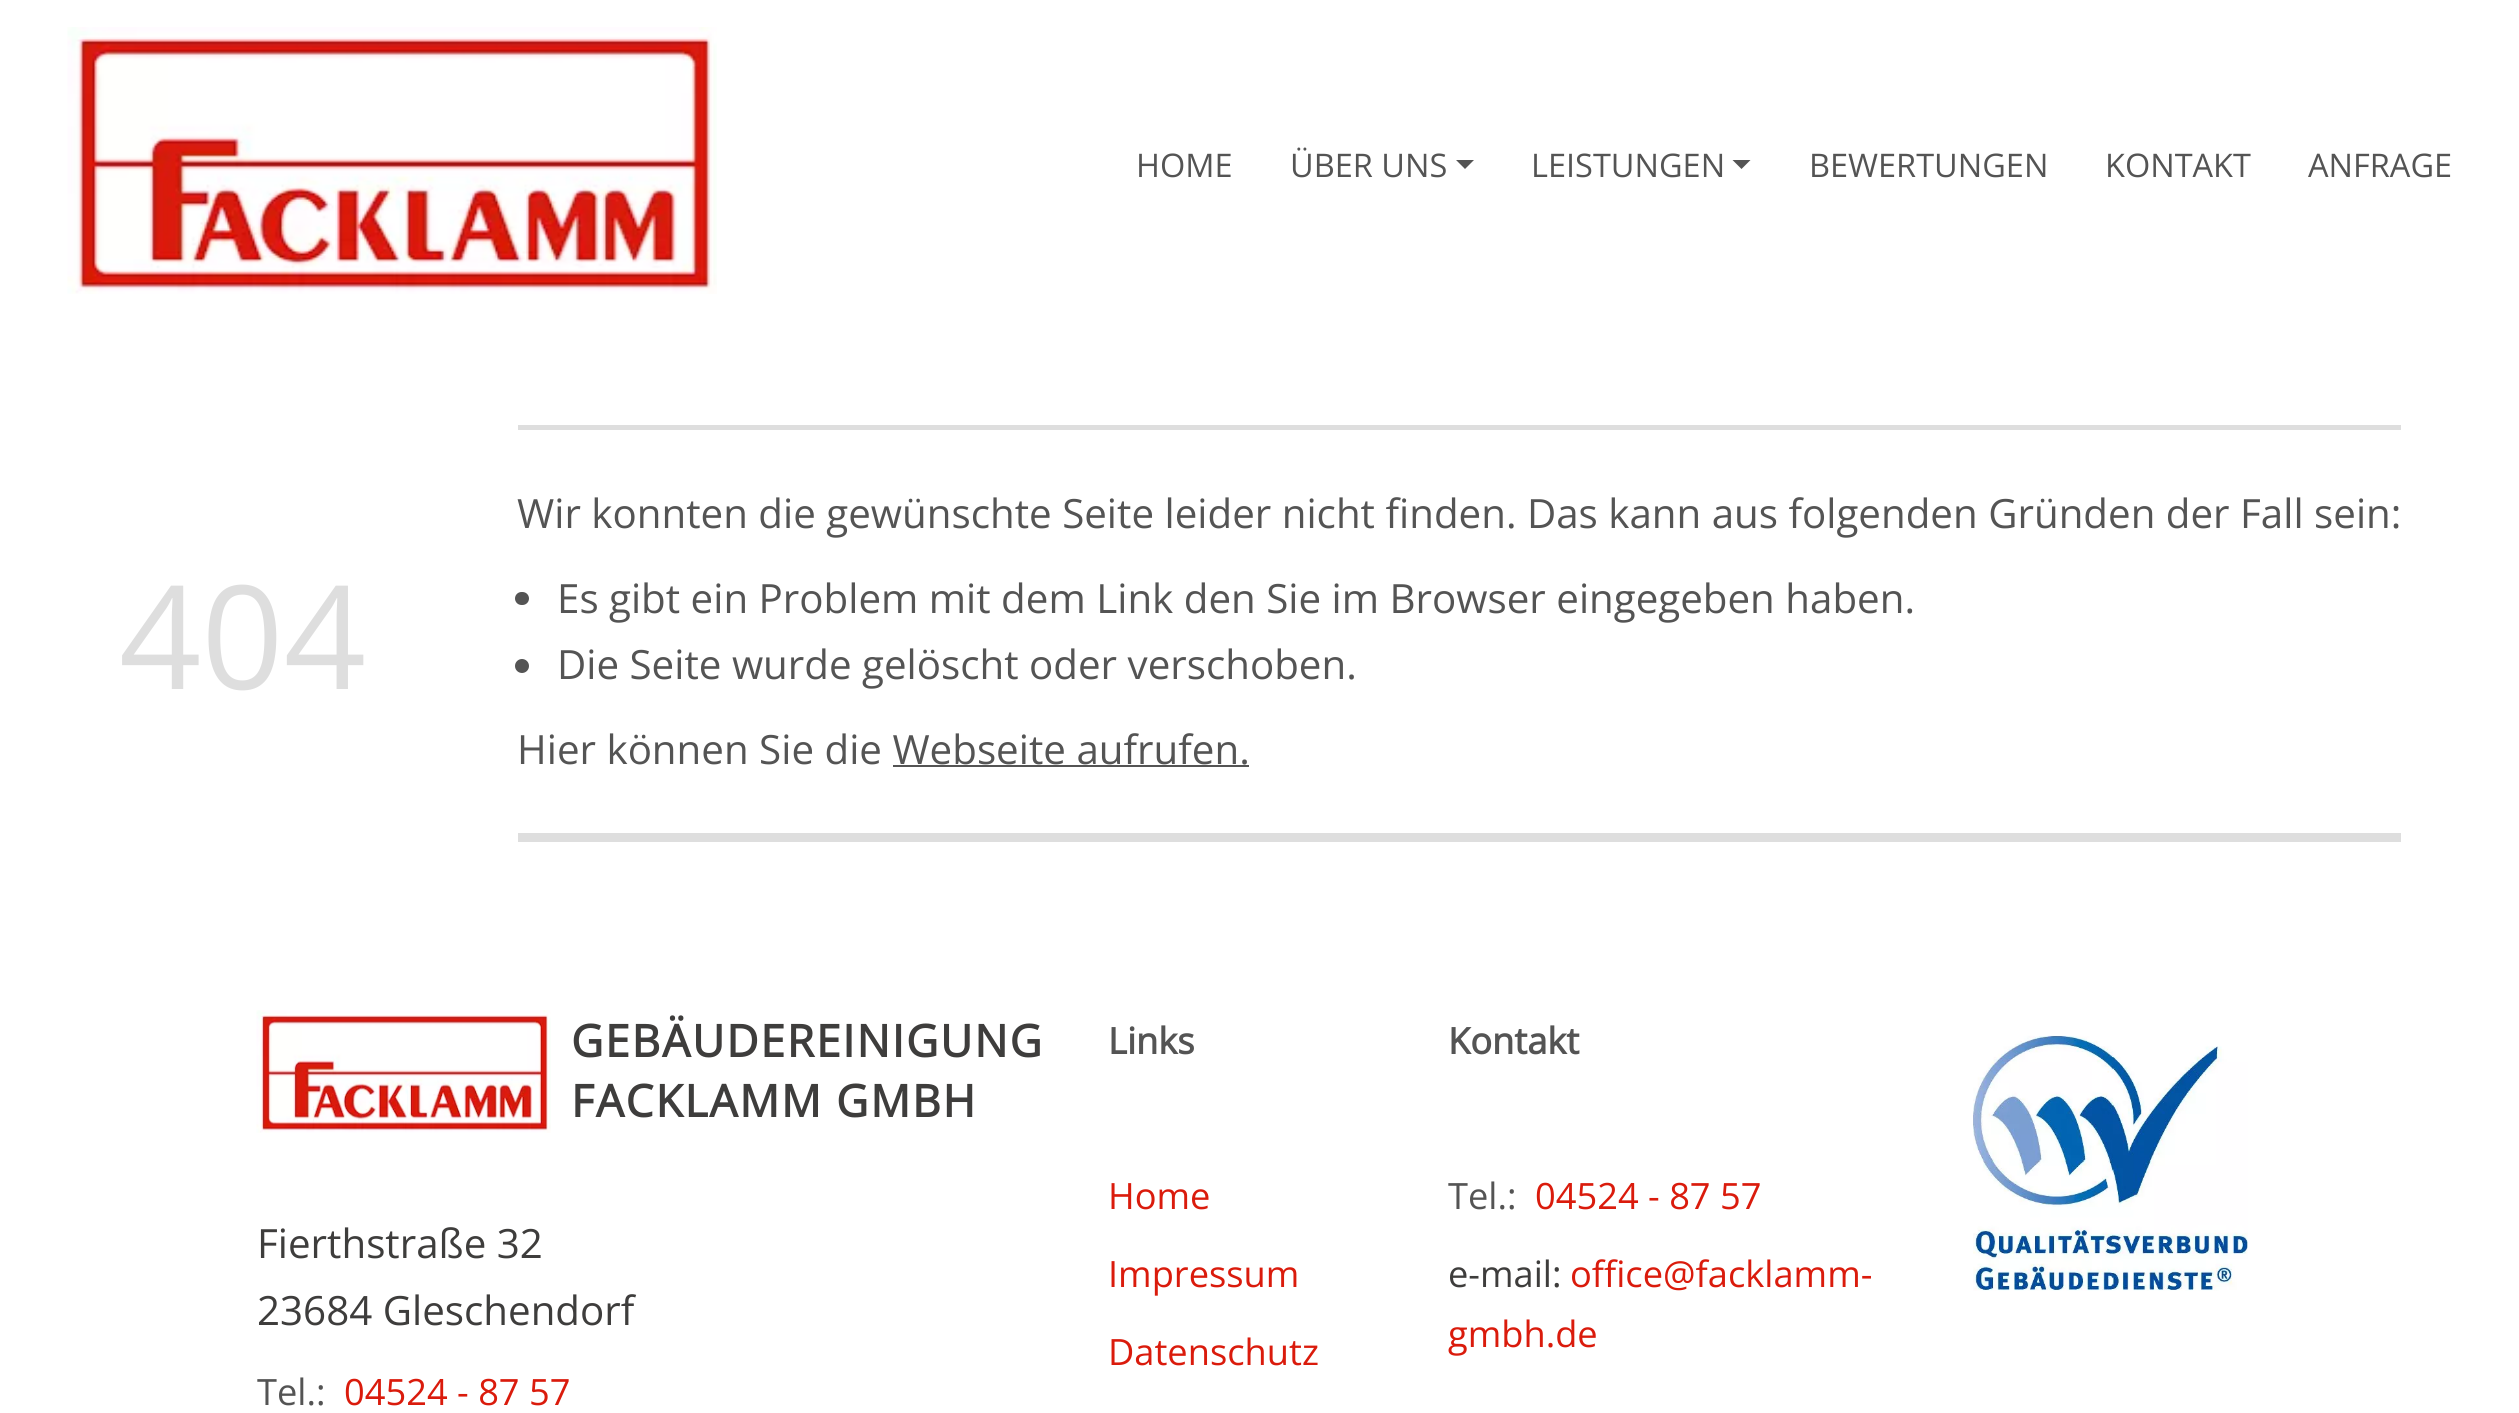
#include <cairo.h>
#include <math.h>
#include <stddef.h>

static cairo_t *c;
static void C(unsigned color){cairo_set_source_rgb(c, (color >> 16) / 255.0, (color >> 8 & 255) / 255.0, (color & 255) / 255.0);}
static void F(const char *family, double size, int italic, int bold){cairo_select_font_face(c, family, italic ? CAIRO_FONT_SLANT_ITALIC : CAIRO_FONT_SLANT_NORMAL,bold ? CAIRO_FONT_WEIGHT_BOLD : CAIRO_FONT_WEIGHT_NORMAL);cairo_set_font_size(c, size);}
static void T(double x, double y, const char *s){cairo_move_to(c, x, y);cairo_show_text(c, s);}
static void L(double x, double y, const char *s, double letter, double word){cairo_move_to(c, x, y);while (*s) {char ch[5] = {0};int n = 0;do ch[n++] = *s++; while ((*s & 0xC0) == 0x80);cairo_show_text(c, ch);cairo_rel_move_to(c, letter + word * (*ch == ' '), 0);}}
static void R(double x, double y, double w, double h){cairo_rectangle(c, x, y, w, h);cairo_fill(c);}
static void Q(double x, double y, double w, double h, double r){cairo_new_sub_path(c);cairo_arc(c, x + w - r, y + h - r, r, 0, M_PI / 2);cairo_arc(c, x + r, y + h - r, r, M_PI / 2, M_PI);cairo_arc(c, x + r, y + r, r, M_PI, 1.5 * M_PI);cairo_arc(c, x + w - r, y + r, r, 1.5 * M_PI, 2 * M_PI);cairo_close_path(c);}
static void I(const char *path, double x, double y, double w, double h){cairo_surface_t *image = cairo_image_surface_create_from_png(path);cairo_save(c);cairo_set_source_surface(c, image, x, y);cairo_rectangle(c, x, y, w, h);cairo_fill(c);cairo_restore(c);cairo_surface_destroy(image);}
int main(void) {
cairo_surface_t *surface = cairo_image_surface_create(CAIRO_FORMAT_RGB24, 2519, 1413);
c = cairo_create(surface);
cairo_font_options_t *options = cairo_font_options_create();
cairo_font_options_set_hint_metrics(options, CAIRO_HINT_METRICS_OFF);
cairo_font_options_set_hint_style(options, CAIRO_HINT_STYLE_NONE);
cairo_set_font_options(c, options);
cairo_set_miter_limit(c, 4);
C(0xffffff);
cairo_paint(c);
I("1.png",67,27,650,267);
F("Open Sans",32.5,0,0);
C(0x545454);
T(1136,177,"HOME");
T(1290,177,"ÜBER UNS");
cairo_new_path(c);
cairo_move_to(c,1456,160);
cairo_line_to(c,1474,160);
cairo_line_to(c,1465,169);
cairo_close_path(c);
cairo_fill(c);
T(1531,177,"LEISTUNGEN");
cairo_new_path(c);
cairo_move_to(c,1732.5,160);
cairo_line_to(c,1750.5,160);
cairo_line_to(c,1741.5,169);
cairo_close_path(c);
cairo_fill(c);
T(1809,177,"BEWERTUNGEN");
T(2105,177,"KONTAKT");
T(2308,177,"ANFRAGE");
F("Open Sans",144,0,0);
C(0xdedede);
T(119,689,"404");
R(518,425,1883,5);
R(518,833,1883,9);
F("Open Sans",40.3,0,0);
C(0x545454);
T(517,528,"Wir konnten die gewünschte Seite leider nicht finden. Das kann aus folgenden Gründen der Fall sein:");
Q(515,592,14,13,6.5);
cairo_fill(c);
T(557,613,"Es gibt ein Problem mit dem Link den Sie im Browser eingegeben haben.");
cairo_new_path(c);
cairo_arc(c,522,666,7,0,2 * M_PI);
cairo_fill(c);
T(557,679,"Die Seite wurde gelöscht oder verschoben.");
T(517,764,"Hier können Sie die Webseite aufrufen.");
R(893,765,356,2);
I("2.png",256,1010,295,123);
F("Open Sans",44.5,0,1);
C(0x3e3d3c);
L(571,1057,"GEBÄUDEREINIGUNG",1.75,0);
L(571,1117,"FACKLAMM GMBH",1.75,0);
F("Open Sans",40.3,0,0);
T(257,1258,"Fierthstraße 32");
T(257,1325,"23684 Gleschendorf");
F("Open Sans",36.25,0,0);
C(0x545454);
T(257,1405,"Tel.:");
C(0xda1b0c);
T(344,1405,"04524 - 87 57");
F("Open Sans",36.25,0,1);
C(0x545454);
T(1108,1054,"Links");
F("Open Sans",36.25,0,0);
C(0xda1b0c);
T(1108,1209,"Home");
T(1108,1287,"Impressum");
T(1108,1365,"Datenschutz");
F("Open Sans",36.25,0,1);
C(0x545454);
T(1448,1054,"Kontakt");
F("Open Sans",36.25,0,0);
T(1448,1209,"Tel.:");
C(0xda1b0c);
T(1535,1209,"04524 - 87 57");
C(0x3e3d3c);
T(1448,1287,"e-mail:");
C(0xda1b0c);
T(1570,1287,"office@facklamm-");
T(1448,1347,"gmbh.de");
I("3.png",1973,1035,275,256);
cairo_surface_write_to_png(surface, "o.png");
cairo_font_options_destroy(options);
cairo_destroy(c);
cairo_surface_destroy(surface);
return 0;
}
